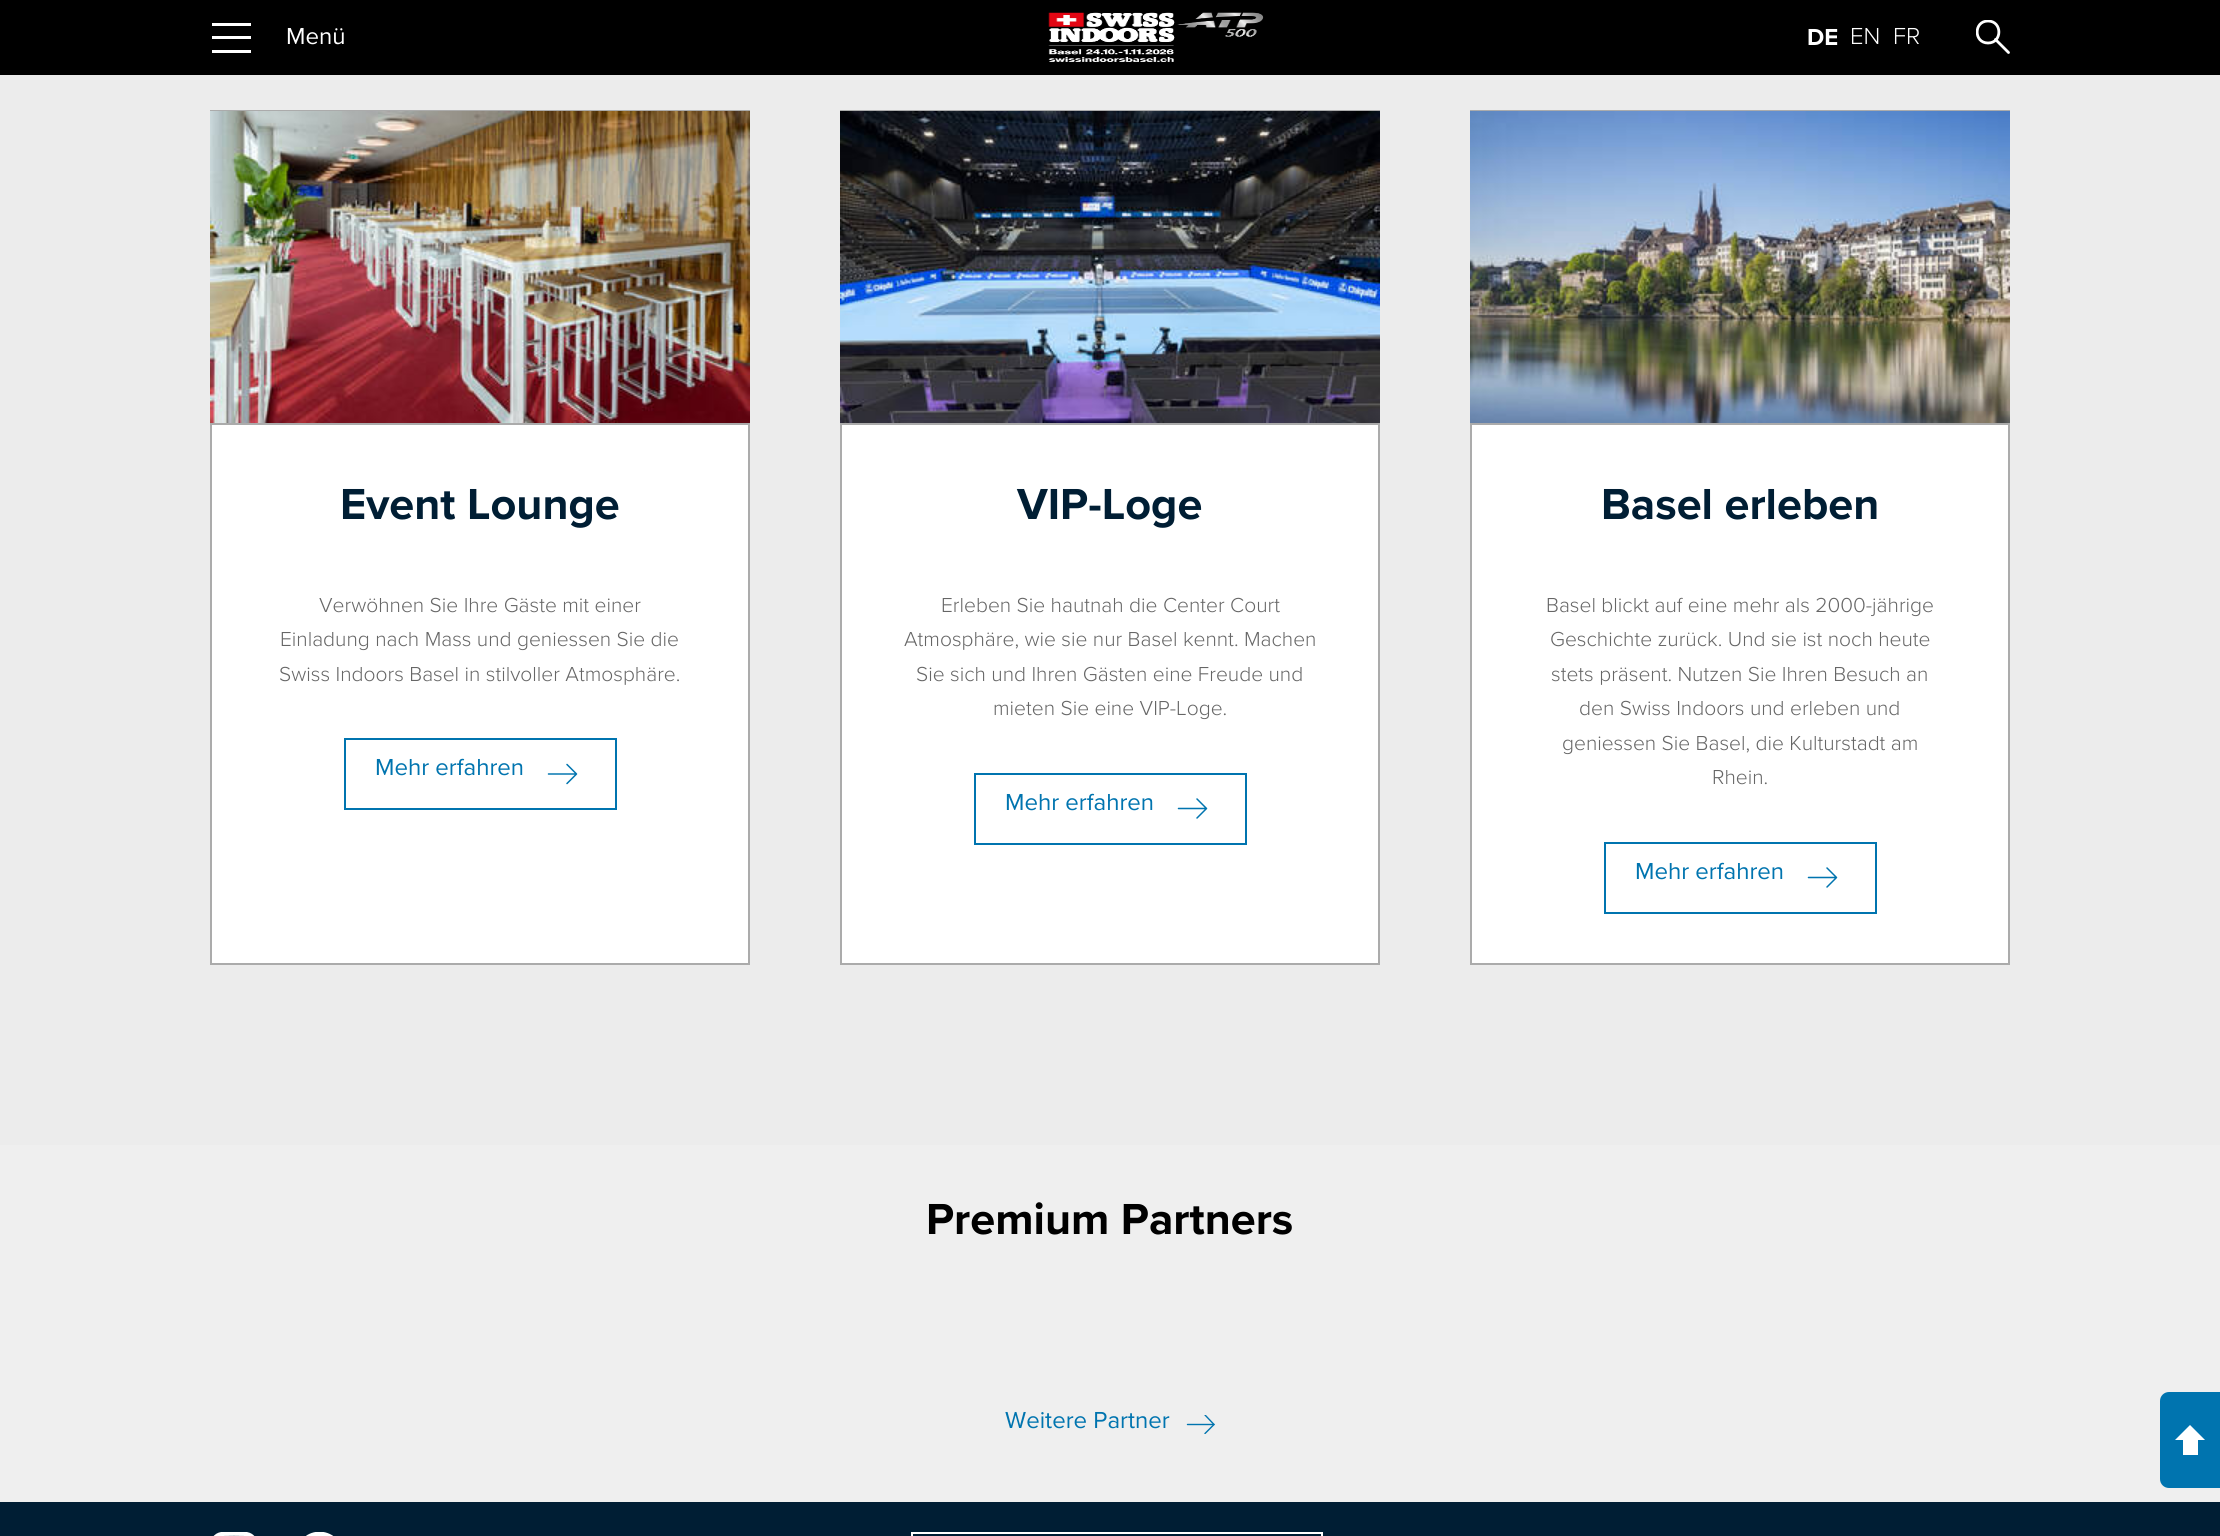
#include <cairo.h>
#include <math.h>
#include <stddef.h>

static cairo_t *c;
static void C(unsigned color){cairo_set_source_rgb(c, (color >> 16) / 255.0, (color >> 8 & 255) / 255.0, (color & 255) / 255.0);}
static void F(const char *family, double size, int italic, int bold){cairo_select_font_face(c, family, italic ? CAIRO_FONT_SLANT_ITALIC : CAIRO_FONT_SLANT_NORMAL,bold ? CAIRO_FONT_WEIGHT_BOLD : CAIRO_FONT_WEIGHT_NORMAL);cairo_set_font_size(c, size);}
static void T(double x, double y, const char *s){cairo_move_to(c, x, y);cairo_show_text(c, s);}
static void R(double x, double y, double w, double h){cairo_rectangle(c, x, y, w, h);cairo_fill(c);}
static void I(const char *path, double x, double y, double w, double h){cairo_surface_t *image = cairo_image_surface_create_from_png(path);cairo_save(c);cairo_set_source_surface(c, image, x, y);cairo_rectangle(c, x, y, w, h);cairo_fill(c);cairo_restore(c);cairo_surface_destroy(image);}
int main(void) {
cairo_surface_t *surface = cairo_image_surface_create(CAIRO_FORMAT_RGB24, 2220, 1536);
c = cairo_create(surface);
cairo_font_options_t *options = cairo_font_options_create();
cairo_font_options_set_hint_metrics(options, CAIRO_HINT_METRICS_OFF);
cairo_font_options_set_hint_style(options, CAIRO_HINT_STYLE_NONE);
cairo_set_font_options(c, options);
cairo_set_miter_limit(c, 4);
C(0xefefef);
cairo_paint(c);
C(0x000000);
R(0,0,2220,75);
C(0xffffff);
R(212,23,39,3);
R(212,36,39,3);
R(212,50,39,3);
F("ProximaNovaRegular",24,0,0);
T(286,44,"Menü");
I("1.png",1048,12,216,50);
F("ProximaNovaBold",24,0,0);
T(1807,45,"DE");
F("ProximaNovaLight",24,0,0);
T(1850,44,"EN");
T(1893,44,"FR");
cairo_save(c);
cairo_rectangle(c,1976,20,34,34);
cairo_clip(c);
cairo_new_path(c);
cairo_move_to(c,1988,43);
cairo_curve_to(c,2002.5,43,2002.5,21,1988,21);
cairo_curve_to(c,1973.5,21,1973.5,43,1988,43);
cairo_close_path(c);
cairo_set_line_width(c,2.8);
cairo_set_line_cap(c,CAIRO_LINE_CAP_ROUND);
cairo_set_line_join(c,CAIRO_LINE_JOIN_ROUND);
cairo_stroke(c);
cairo_restore(c);
cairo_new_path(c);
cairo_move_to(c,1995.5,39.5);
cairo_line_to(c,2008.5,52.5);
cairo_set_line_width(c,2.8);
cairo_set_line_cap(c,CAIRO_LINE_CAP_ROUND);
cairo_set_line_join(c,CAIRO_LINE_JOIN_ROUND);
cairo_stroke(c);
C(0xececec);
R(0,75,2220,1070);
C(0xffffff);
R(212,425,536,538);
cairo_rectangle(c,211,111,538,853);
C(0xababab);
cairo_set_line_width(c,2);
cairo_set_line_cap(c,CAIRO_LINE_CAP_BUTT);
cairo_set_line_join(c,CAIRO_LINE_JOIN_MITER);
cairo_stroke(c);
I("2.png",210,111,540,312);
R(210,423,540,2);
F("ProximaNovaBold",45,0,0);
C(0x001e34);
T(340,519,"Event Lounge");
F("ProximaNovaLight",21,0,0);
C(0x666666);
T(319,612,"Verwöhnen Sie Ihre Gäste mit einer");
T(280,646,"Einladung nach Mass und geniessen Sie die");
T(279,681,"Swiss Indoors Basel in stilvoller Atmosphäre.");
cairo_new_path(c);
cairo_move_to(c,548.5,774);
cairo_line_to(c,576.5,774);
cairo_move_to(c,567,783.5);
cairo_line_to(c,576.5,774);
cairo_line_to(c,567,764.5);
C(0x0074af);
cairo_set_line_width(c,1.5);
cairo_set_line_cap(c,CAIRO_LINE_CAP_ROUND);
cairo_set_line_join(c,CAIRO_LINE_JOIN_ROUND);
cairo_stroke(c);
cairo_rectangle(c,345,739,271,70);
cairo_set_line_width(c,2);
cairo_set_line_cap(c,CAIRO_LINE_CAP_BUTT);
cairo_set_line_join(c,CAIRO_LINE_JOIN_MITER);
cairo_stroke(c);
F("ProximaNovaRegular",24,0,0);
T(375,775,"Mehr erfahren");
C(0xffffff);
R(842,425,536,538);
cairo_rectangle(c,841,111,538,853);
C(0xababab);
cairo_stroke(c);
I("3.png",840,111,540,312);
R(840,423,540,2);
F("ProximaNovaBold",45,0,0);
C(0x001e34);
T(1017,519,"VIP-Loge");
F("ProximaNovaLight",21,0,0);
C(0x666666);
T(941,612,"Erleben Sie hautnah die Center Court");
T(904,646,"Atmosphäre, wie sie nur Basel kennt. Machen");
T(916,681,"Sie sich und Ihren Gästen eine Freude und");
T(993,715,"mieten Sie eine VIP-Loge.");
cairo_new_path(c);
cairo_move_to(c,1178.5,808.5);
cairo_line_to(c,1206.5,808.5);
cairo_move_to(c,1197,818);
cairo_line_to(c,1206.5,808.5);
cairo_line_to(c,1197,799);
C(0x0074af);
cairo_set_line_width(c,1.5);
cairo_set_line_cap(c,CAIRO_LINE_CAP_ROUND);
cairo_set_line_join(c,CAIRO_LINE_JOIN_ROUND);
cairo_stroke(c);
cairo_rectangle(c,975,774,271,70);
cairo_set_line_width(c,2);
cairo_set_line_cap(c,CAIRO_LINE_CAP_BUTT);
cairo_set_line_join(c,CAIRO_LINE_JOIN_MITER);
cairo_stroke(c);
F("ProximaNovaRegular",24,0,0);
T(1005,810,"Mehr erfahren");
C(0xffffff);
R(1472,425,536,538);
cairo_rectangle(c,1471,111,538,853);
C(0xababab);
cairo_stroke(c);
I("4.png",1470,111,540,312);
R(1470,423,540,2);
F("ProximaNovaBold",45,0,0);
C(0x001e34);
T(1601,519,"Basel erleben");
F("ProximaNovaLight",21,0,0);
C(0x666666);
T(1546,612,"Basel blickt auf eine mehr als 2000-jährige");
T(1550,646,"Geschichte zurück. Und sie ist noch heute");
T(1551,681,"stets präsent. Nutzen Sie Ihren Besuch an");
T(1579,715,"den Swiss Indoors und erleben und");
T(1562,750,"geniessen Sie Basel, die Kulturstadt am");
T(1712,784,"Rhein.");
cairo_new_path(c);
cairo_move_to(c,1808.5,877.5);
cairo_line_to(c,1836.5,877.5);
cairo_move_to(c,1827,887);
cairo_line_to(c,1836.5,877.5);
cairo_line_to(c,1827,868);
C(0x0074af);
cairo_set_line_width(c,1.5);
cairo_set_line_cap(c,CAIRO_LINE_CAP_ROUND);
cairo_set_line_join(c,CAIRO_LINE_JOIN_ROUND);
cairo_stroke(c);
cairo_rectangle(c,1605,843,271,70);
cairo_set_line_width(c,2);
cairo_set_line_cap(c,CAIRO_LINE_CAP_BUTT);
cairo_set_line_join(c,CAIRO_LINE_JOIN_MITER);
cairo_stroke(c);
F("ProximaNovaRegular",24,0,0);
T(1635,879,"Mehr erfahren");
F("ProximaNovaBold",45,0,0);
C(0x000000);
T(926,1234,"Premium Partners");
cairo_new_path(c);
cairo_move_to(c,1187.5,1424.5);
cairo_line_to(c,1214,1424.5);
C(0x0074af);
cairo_set_line_width(c,1.4);
cairo_set_line_cap(c,CAIRO_LINE_CAP_ROUND);
cairo_set_line_join(c,CAIRO_LINE_JOIN_ROUND);
cairo_stroke(c);
cairo_save(c);
cairo_rectangle(c,1187,1415,28,19);
cairo_clip(c);
cairo_new_path(c);
cairo_move_to(c,1205,1433.5);
cairo_line_to(c,1214,1424.5);
cairo_line_to(c,1205,1415);
cairo_stroke(c);
cairo_restore(c);
F("ProximaNovaRegular",24,0,0);
T(1005,1428,"Weitere Partner");
C(0x001e34);
R(0,1502,2220,34);
I("5.png",213,1532,42,4);
I("6.png",306,1532,28,4);
cairo_rectangle(c,912,1533,410,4);
C(0xffffff);
cairo_set_line_width(c,2);
cairo_set_line_cap(c,CAIRO_LINE_CAP_BUTT);
cairo_set_line_join(c,CAIRO_LINE_JOIN_MITER);
cairo_stroke(c);
C(0x0074af);
cairo_new_path(c);
cairo_move_to(c,2169,1392);
cairo_line_to(c,2220,1392);
cairo_line_to(c,2220,1488);
cairo_line_to(c,2169,1488);
cairo_curve_to(c,2164,1488,2160,1484,2160,1479);
cairo_line_to(c,2160,1401);
cairo_curve_to(c,2160,1396,2164,1392,2169,1392);
cairo_close_path(c);
cairo_fill(c);
C(0xffffff);
cairo_new_path(c);
cairo_move_to(c,2205,1440);
cairo_line_to(c,2175,1440);
cairo_line_to(c,2190,1425);
cairo_close_path(c);
cairo_fill(c);
R(2183,1440,15,15);
cairo_surface_write_to_png(surface, "o.png");
cairo_font_options_destroy(options);
cairo_destroy(c);
cairo_surface_destroy(surface);
return 0;
}
